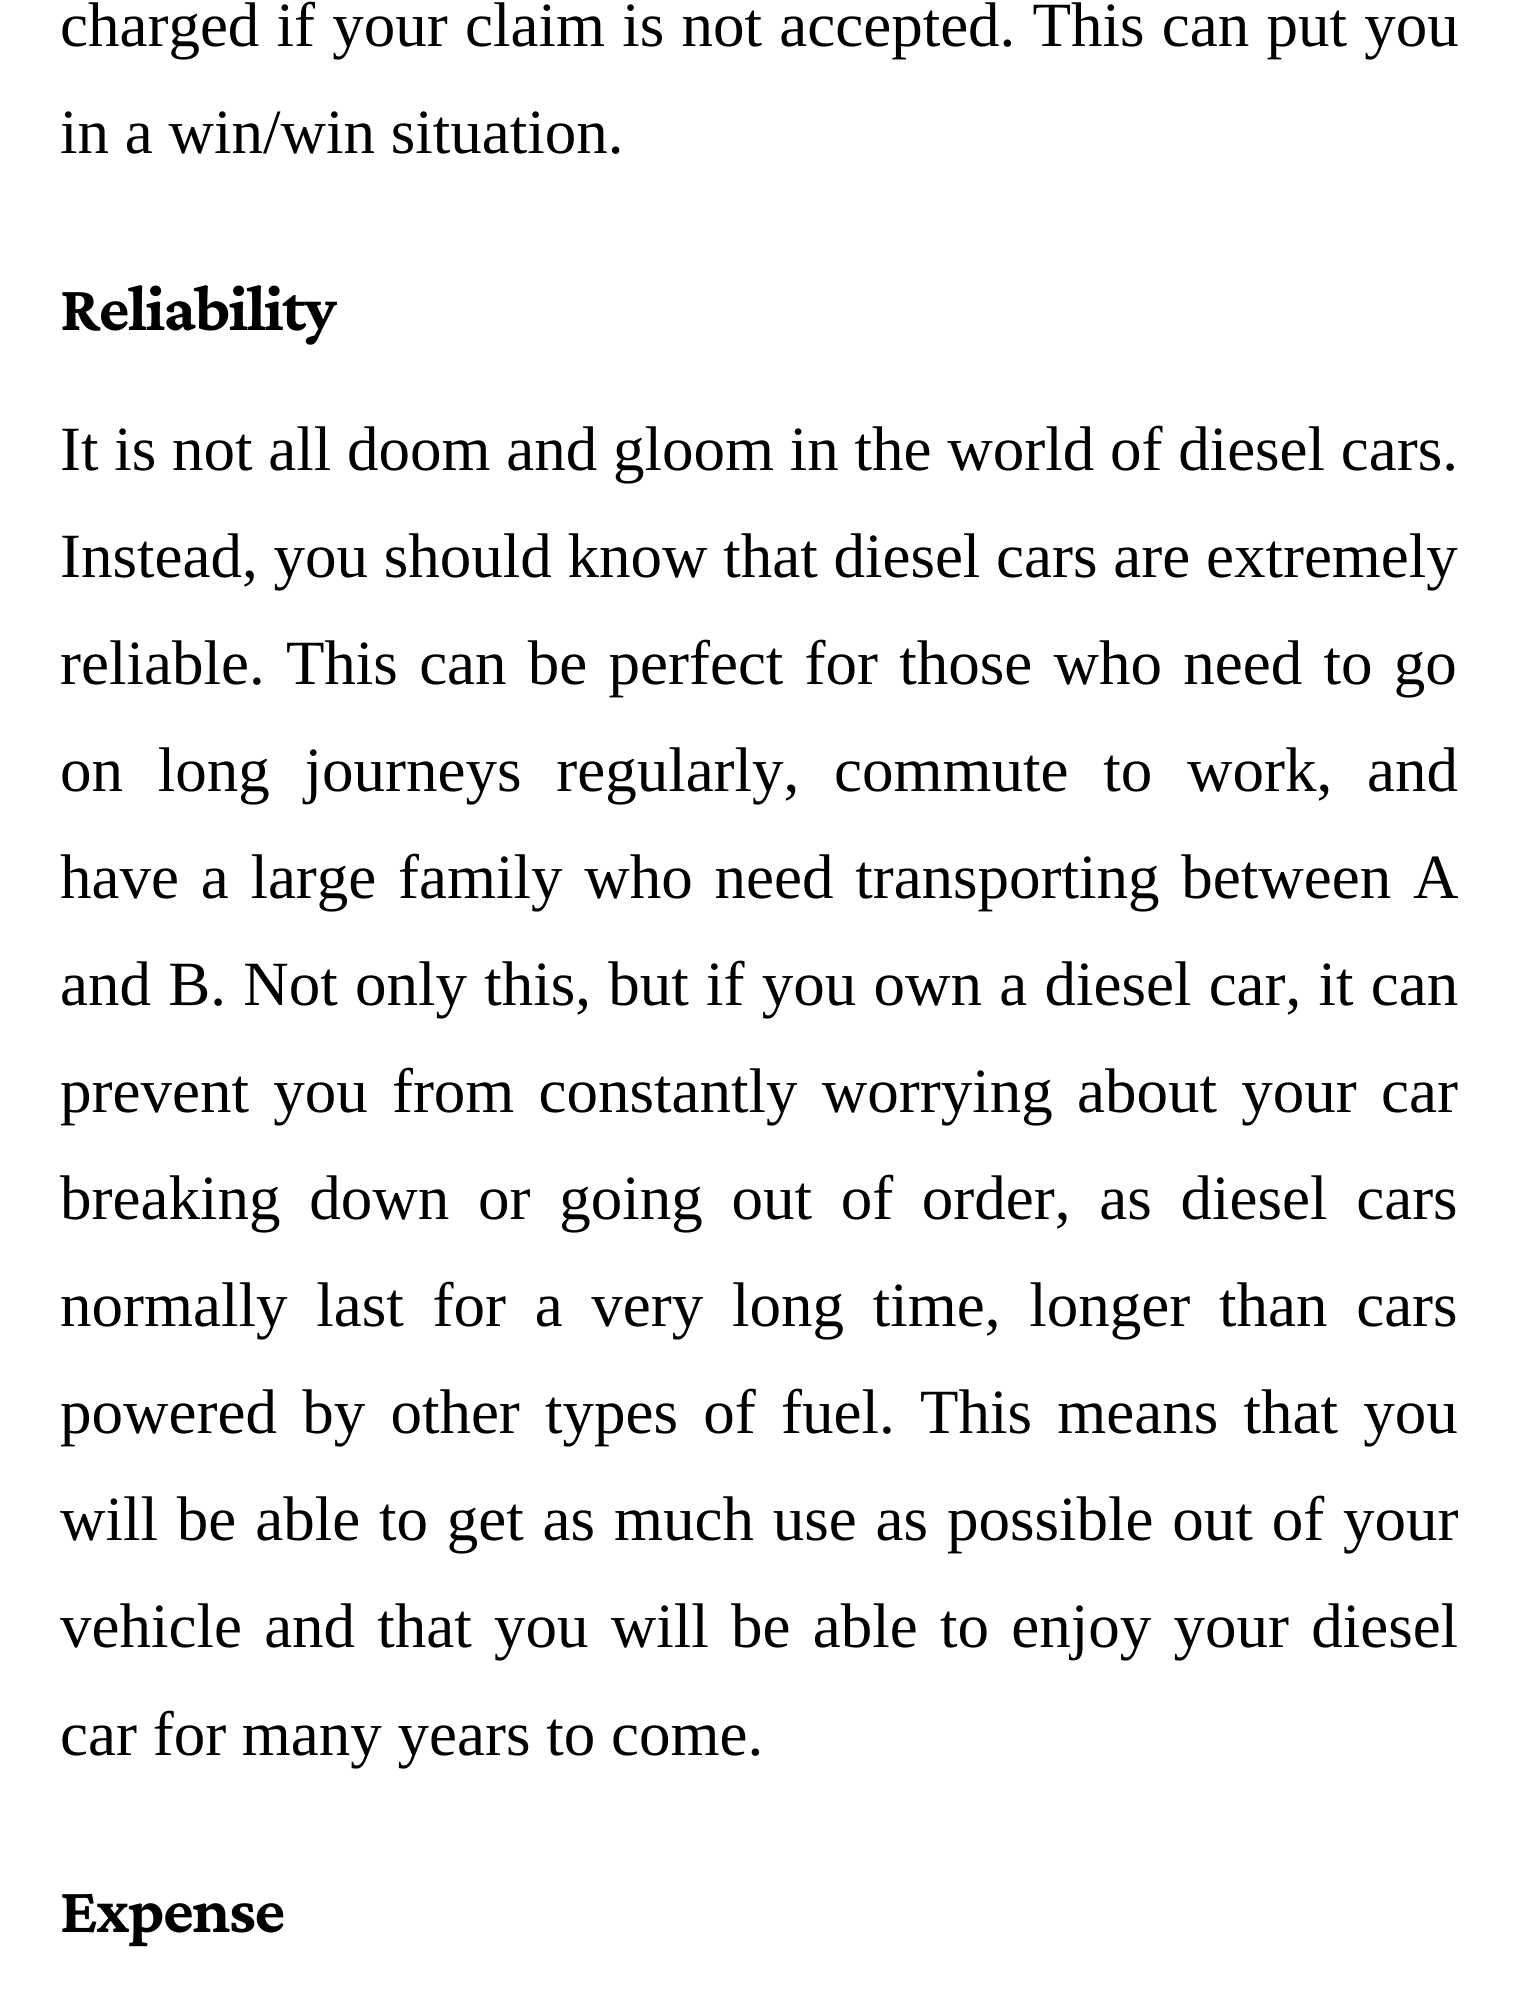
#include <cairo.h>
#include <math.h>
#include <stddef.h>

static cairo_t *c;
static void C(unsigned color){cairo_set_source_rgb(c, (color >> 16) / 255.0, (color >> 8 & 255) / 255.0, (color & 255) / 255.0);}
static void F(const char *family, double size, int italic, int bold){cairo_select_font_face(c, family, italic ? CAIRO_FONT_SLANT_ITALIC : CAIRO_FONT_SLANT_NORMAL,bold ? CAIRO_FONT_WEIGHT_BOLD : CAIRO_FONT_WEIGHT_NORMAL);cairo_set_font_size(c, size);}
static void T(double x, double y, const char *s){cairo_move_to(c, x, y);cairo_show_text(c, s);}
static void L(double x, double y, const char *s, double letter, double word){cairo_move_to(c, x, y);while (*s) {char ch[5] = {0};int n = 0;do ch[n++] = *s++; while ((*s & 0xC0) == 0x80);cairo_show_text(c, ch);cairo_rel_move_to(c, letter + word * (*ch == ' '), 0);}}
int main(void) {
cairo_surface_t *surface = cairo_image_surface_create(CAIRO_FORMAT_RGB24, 1517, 2002);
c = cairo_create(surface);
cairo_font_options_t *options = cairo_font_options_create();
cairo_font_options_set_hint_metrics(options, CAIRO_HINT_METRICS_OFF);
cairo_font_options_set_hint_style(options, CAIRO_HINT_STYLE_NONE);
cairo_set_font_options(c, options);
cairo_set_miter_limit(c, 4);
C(0xffffff);
cairo_paint(c);
F("Liberation Serif",63,0,0);
C(0x000000);
L(60,46,"charged if your claim is not accepted. This can put you",0,1.5);
T(60,153,"in a win/win situation.");
F("Crimson Pro",66,0,1);
L(60,330,"Reliability",-1.4,0);
F("Liberation Serif",63,0,0);
T(60,470,"It is not all doom and gloom in the world of diesel cars.");
T(60,577,"Instead, you should know that diesel cars are extremely");
L(60,684,"reliable. This can be perfect for those who need to go",0,5.5);
L(60,791,"on long journeys regularly, commute to work, and",0,19);
L(60,898,"have a large family who need transporting between A",0,6);
L(60,1005,"and B. Not only this, but if you own a diesel car, it can",0,1.5);
L(60,1112,"prevent you from constantly worrying about your car",0,8.5);
L(60,1219,"breaking down or going out of order, as diesel cars",0,13);
L(60,1326,"normally last for a very long time, longer than cars",0,13);
L(60,1433,"powered by other types of fuel. This means that you",0,9.5);
L(60,1540,"will be able to get as much use as possible out of your",0,3.1);
L(60,1647,"vehicle and that you will be able to enjoy your diesel",0,6.5);
T(60,1755,"car for many years to come.");
F("Crimson Pro",66,0,1);
L(60,1932,"Expense",-1.4,0);
cairo_surface_write_to_png(surface, "o.png");
cairo_font_options_destroy(options);
cairo_destroy(c);
cairo_surface_destroy(surface);
return 0;
}
